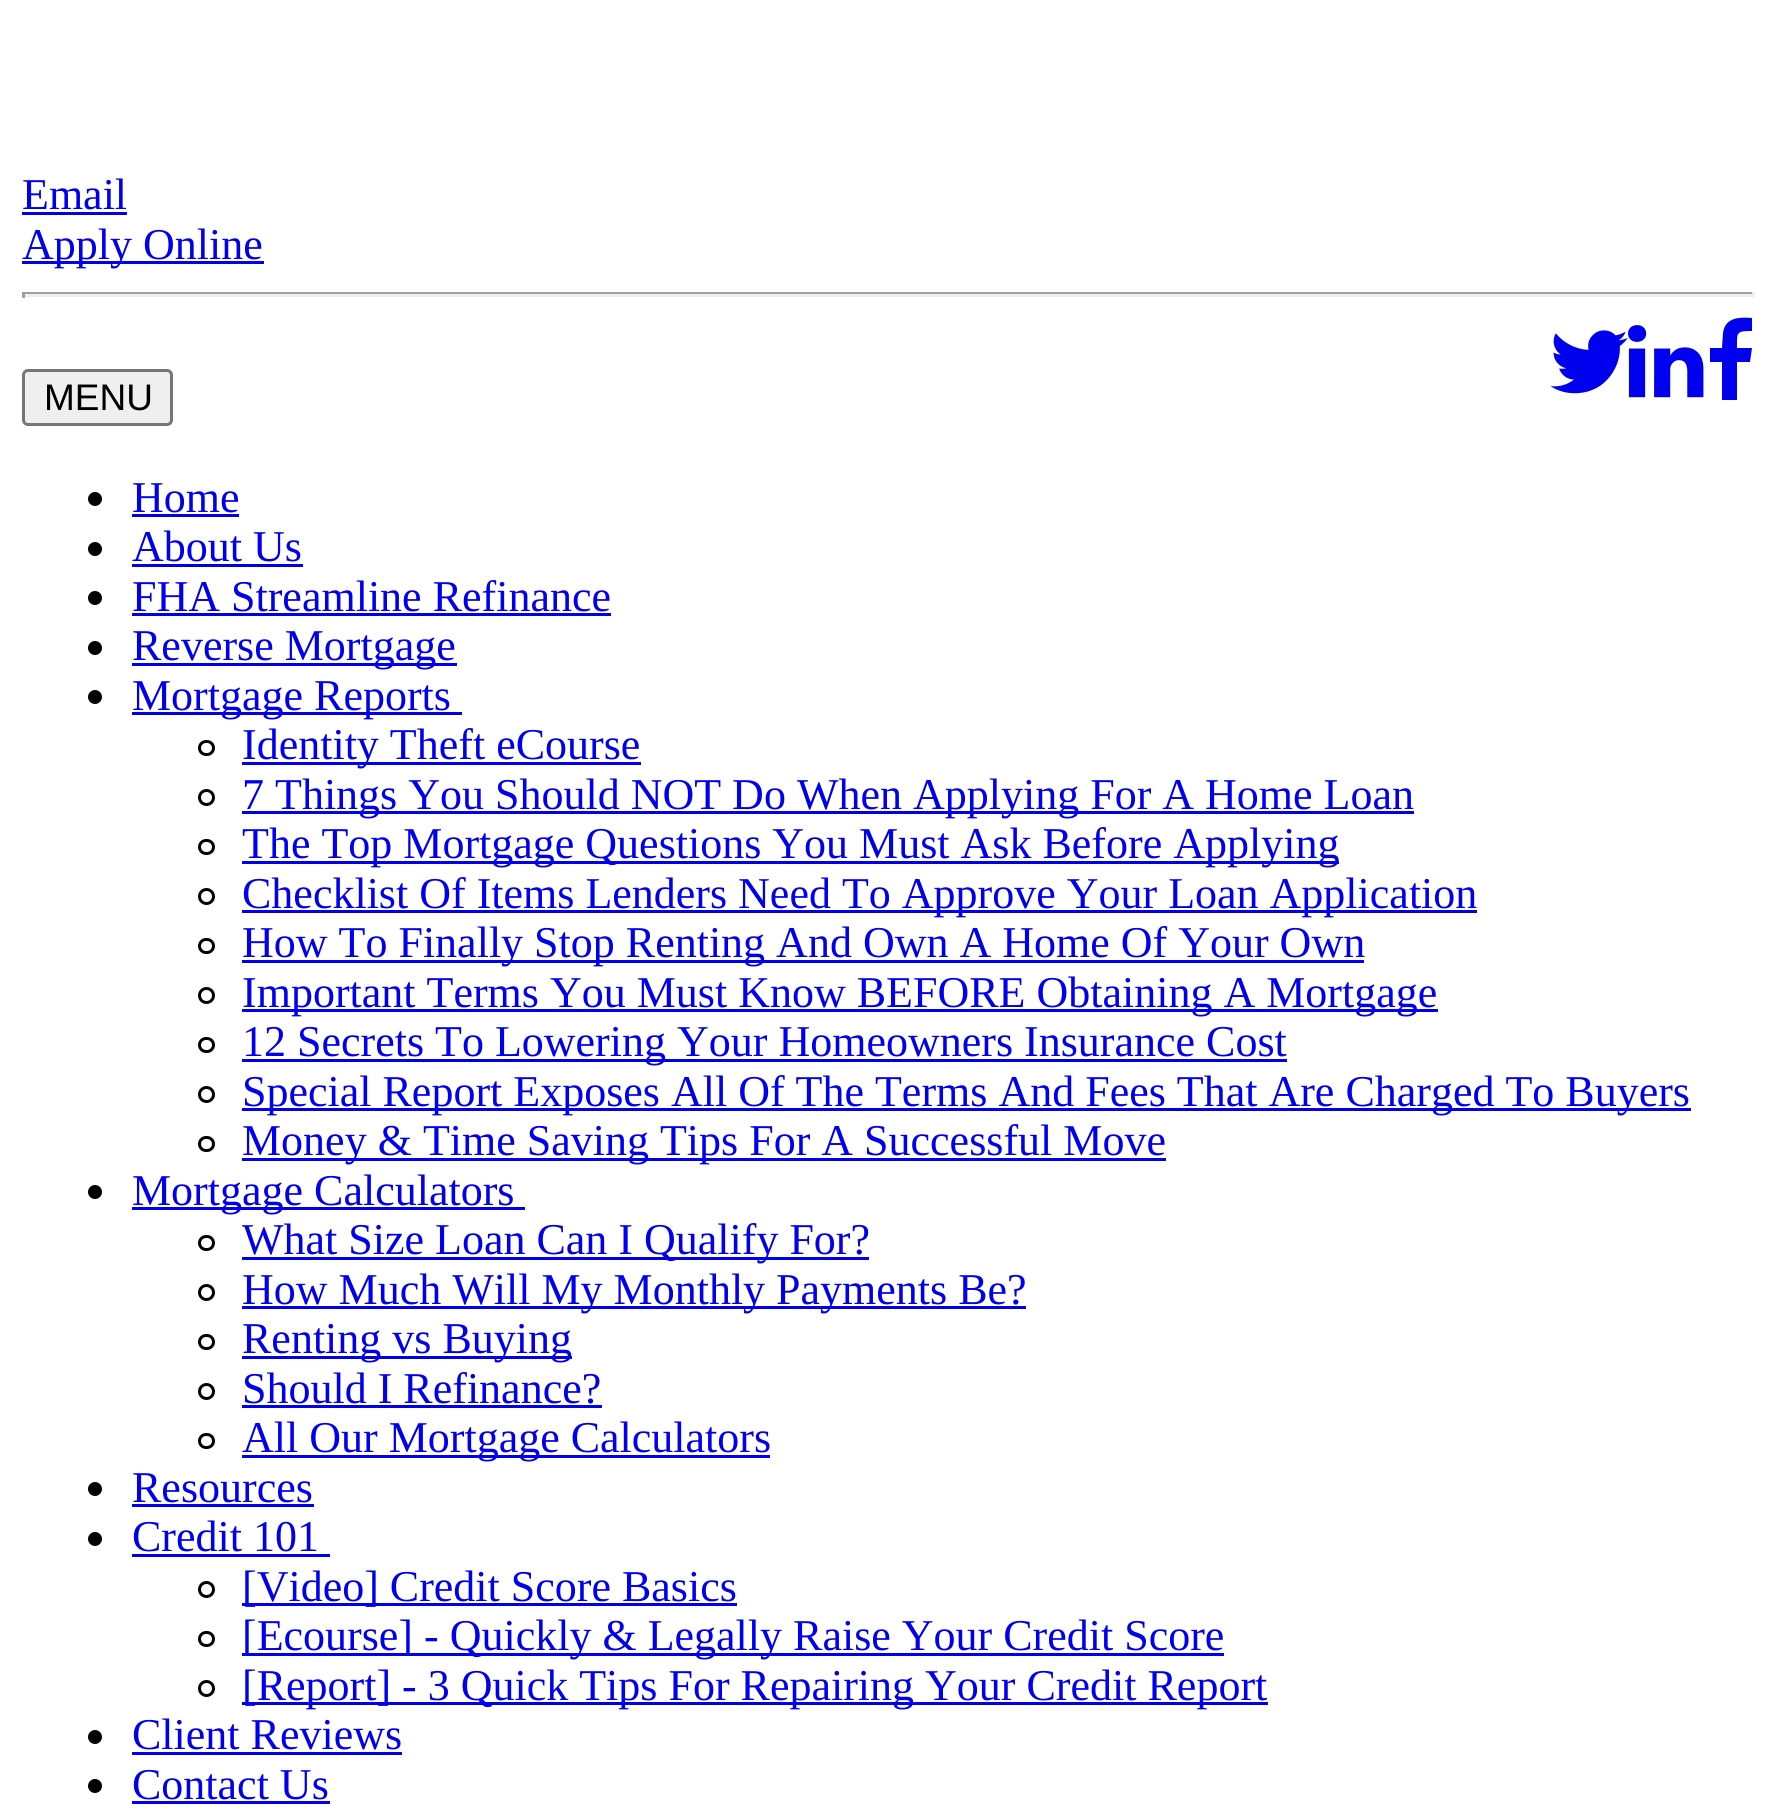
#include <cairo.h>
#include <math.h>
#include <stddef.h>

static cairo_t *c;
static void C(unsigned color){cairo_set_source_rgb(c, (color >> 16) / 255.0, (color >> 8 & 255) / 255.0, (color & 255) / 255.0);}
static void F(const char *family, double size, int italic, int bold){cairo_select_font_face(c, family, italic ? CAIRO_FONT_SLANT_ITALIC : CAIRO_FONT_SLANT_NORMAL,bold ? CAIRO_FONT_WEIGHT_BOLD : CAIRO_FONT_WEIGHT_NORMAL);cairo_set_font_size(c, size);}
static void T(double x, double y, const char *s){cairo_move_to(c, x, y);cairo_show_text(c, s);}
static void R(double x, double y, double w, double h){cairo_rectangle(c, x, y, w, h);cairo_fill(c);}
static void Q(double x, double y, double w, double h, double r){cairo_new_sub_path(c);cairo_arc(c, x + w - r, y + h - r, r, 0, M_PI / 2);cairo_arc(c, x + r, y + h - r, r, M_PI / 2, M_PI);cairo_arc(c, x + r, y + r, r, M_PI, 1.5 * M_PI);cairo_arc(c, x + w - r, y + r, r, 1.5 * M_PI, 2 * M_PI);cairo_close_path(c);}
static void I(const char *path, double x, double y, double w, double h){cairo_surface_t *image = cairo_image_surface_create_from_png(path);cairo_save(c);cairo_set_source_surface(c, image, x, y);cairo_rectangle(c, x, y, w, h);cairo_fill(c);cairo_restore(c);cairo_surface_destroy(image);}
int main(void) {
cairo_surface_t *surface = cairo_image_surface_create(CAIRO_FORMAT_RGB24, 1775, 1806);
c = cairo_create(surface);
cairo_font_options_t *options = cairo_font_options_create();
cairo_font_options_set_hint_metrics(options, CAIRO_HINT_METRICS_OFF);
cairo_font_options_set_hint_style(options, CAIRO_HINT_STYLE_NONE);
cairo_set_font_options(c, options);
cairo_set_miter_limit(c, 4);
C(0xffffff);
cairo_paint(c);
F("Liberation Serif",44,0,0);
C(0x0000ee);
T(22,209,"Email");
R(22,212,105,3);
R(22,261,242,3);
T(22,259,"Apply Online");
C(0x9f9f9f);
R(22,292,1733,2);
C(0xeeeeee);
R(1752,292,3,6);
R(22,294,1733,3);
C(0x9f9f9f);
R(22,292,3,6);
I("1.png",1550,330,78,64);
I("2.png",1628,325,76,73);
C(0x0000ee);
cairo_new_path(c);
cairo_move_to(c,1752,318);
cairo_line_to(c,1752,331);
cairo_curve_to(c,1736,331,1737,332,1737,348);
cairo_line_to(c,1752,348);
cairo_line_to(c,1750,362);
cairo_line_to(c,1737,362);
cairo_line_to(c,1737,400);
cairo_line_to(c,1722,400);
cairo_line_to(c,1722,362);
cairo_line_to(c,1710,362);
cairo_line_to(c,1710,348);
cairo_line_to(c,1722,348);
cairo_line_to(c,1723,333);
cairo_curve_to(c,1725,317,1740,317,1752,318);
cairo_close_path(c);
cairo_fill(c);
C(0xefefef);
Q(23.5,370.5,148,54,4.5);
cairo_fill_preserve(c);
C(0x767676);
cairo_set_line_width(c,3);
cairo_stroke(c);
F("Liberation Sans",37,0,0);
C(0x000000);
T(44,410,"MENU");
cairo_new_path(c);
cairo_arc(c,95,499,7,0,2 * M_PI);
cairo_fill(c);
F("Liberation Serif",44,0,0);
C(0x0000ee);
T(132,512,"Home");
R(132,514,107,3);
C(0x000000);
cairo_new_path(c);
cairo_arc(c,95,549,7,0,2 * M_PI);
cairo_fill(c);
C(0x0000ee);
T(132,561,"About Us");
R(132,564,171,3);
C(0x000000);
cairo_new_path(c);
cairo_arc(c,95,598,7,0,2 * M_PI);
cairo_fill(c);
C(0x0000ee);
T(132,611,"FHA Streamline Refinance");
R(132,613,479,3);
C(0x000000);
cairo_new_path(c);
cairo_arc(c,95,648,7,0,2 * M_PI);
cairo_fill(c);
C(0x0000ee);
R(132,663,325,3);
T(132,660,"Reverse Mortgage");
C(0x000000);
cairo_new_path(c);
cairo_arc(c,95,697,7,0,2 * M_PI);
cairo_fill(c);
C(0x0000ee);
R(132,712,330,3);
T(132,710,"Mortgage Reports");
Q(199.5,741.5,14,13,6.5);
C(0x000000);
cairo_stroke(c);
C(0x0000ee);
R(242,762,399,3);
T(242,759,"Identity Theft eCourse");
cairo_new_path(c);
cairo_arc(c,206.5,797.5,7,0,2 * M_PI);
C(0x000000);
cairo_stroke(c);
C(0x0000ee);
R(242,811,1172,3);
T(242,809,"7 Things You Should NOT Do When Applying For A Home Loan");
Q(199.5,840.5,14,13,6.5);
C(0x000000);
cairo_stroke(c);
C(0x0000ee);
R(242,861,1097,3);
T(242,858,"The Top Mortgage Questions You Must Ask Before Applying");
cairo_new_path(c);
cairo_arc(c,206.5,896.5,7,0,2 * M_PI);
C(0x000000);
cairo_stroke(c);
C(0x0000ee);
R(242,910,1235,3);
T(242,908,"Checklist Of Items Lenders Need To Approve Your Loan Application");
Q(199.5,939.5,14,13,6.5);
C(0x000000);
cairo_stroke(c);
C(0x0000ee);
R(242,960,1122,3);
T(242,957,"How To Finally Stop Renting And Own A Home Of Your Own");
cairo_new_path(c);
cairo_arc(c,206.5,995.5,7,0,2 * M_PI);
C(0x000000);
cairo_stroke(c);
C(0x0000ee);
R(242,1009,1196,3);
T(242,1007,"Important Terms You Must Know BEFORE Obtaining A Mortgage");
Q(199.5,1038.5,14,13,6.5);
C(0x000000);
cairo_stroke(c);
C(0x0000ee);
R(242,1059,1045,3);
T(242,1056,"12 Secrets To Lowering Your Homeowners Insurance Cost");
cairo_new_path(c);
cairo_arc(c,206.5,1094.5,7,0,2 * M_PI);
C(0x000000);
cairo_stroke(c);
C(0x0000ee);
R(242,1108,1449,3);
T(242,1106,"Special Report Exposes All Of The Terms And Fees That Are Charged To Buyers");
Q(199.5,1137.5,14,13,6.5);
C(0x000000);
cairo_stroke(c);
C(0x0000ee);
R(242,1158,924,3);
T(242,1155,"Money & Time Saving Tips For A Successful Move");
C(0x000000);
cairo_new_path(c);
cairo_arc(c,95,1192,7,0,2 * M_PI);
cairo_fill(c);
C(0x0000ee);
R(132,1207,393,3);
T(132,1205,"Mortgage Calculators");
Q(199.5,1236.5,14,13,6.5);
C(0x000000);
cairo_stroke(c);
C(0x0000ee);
R(242,1257,627,3);
T(242,1254,"What Size Loan Can I Qualify For?");
cairo_new_path(c);
cairo_arc(c,206.5,1292.5,7,0,2 * M_PI);
C(0x000000);
cairo_stroke(c);
C(0x0000ee);
R(242,1306,784,3);
T(242,1304,"How Much Will My Monthly Payments Be?");
Q(199.5,1335.5,14,13,6.5);
C(0x000000);
cairo_stroke(c);
C(0x0000ee);
R(242,1356,330,3);
T(242,1353,"Renting vs Buying");
cairo_new_path(c);
cairo_arc(c,206.5,1391.5,7,0,2 * M_PI);
C(0x000000);
cairo_stroke(c);
C(0x0000ee);
T(242,1403,"Should I Refinance?");
R(242,1405,360,3);
Q(199.5,1434.5,14,13,6.5);
C(0x000000);
cairo_stroke(c);
C(0x0000ee);
R(242,1455,528,3);
T(242,1452,"All Our Mortgage Calculators");
C(0x000000);
cairo_new_path(c);
cairo_arc(c,95,1489,7,0,2 * M_PI);
cairo_fill(c);
C(0x0000ee);
T(132,1502,"Resources");
R(132,1504,182,3);
C(0x000000);
cairo_new_path(c);
cairo_arc(c,95,1539,7,0,2 * M_PI);
cairo_fill(c);
C(0x0000ee);
T(132,1551,"Credit 101");
R(132,1554,198,3);
cairo_new_path(c);
cairo_arc(c,206.5,1589.5,7,0,2 * M_PI);
C(0x000000);
cairo_stroke(c);
C(0x0000ee);
R(242,1603,495,3);
T(242,1601,"[Video] Credit Score Basics");
Q(199.5,1632.5,14,13,6.5);
C(0x000000);
cairo_stroke(c);
C(0x0000ee);
R(242,1653,982,3);
T(242,1650,"[Ecourse] - Quickly & Legally Raise Your Credit Score");
cairo_new_path(c);
cairo_arc(c,206.5,1688.5,7,0,2 * M_PI);
C(0x000000);
cairo_stroke(c);
C(0x0000ee);
R(242,1702,1026,3);
T(242,1700,"[Report] - 3 Quick Tips For Repairing Your Credit Report");
C(0x000000);
cairo_new_path(c);
cairo_arc(c,95,1737,7,0,2 * M_PI);
cairo_fill(c);
C(0x0000ee);
T(132,1749,"Client Reviews");
R(132,1752,270,3);
C(0x000000);
cairo_new_path(c);
cairo_arc(c,95,1786,7,0,2 * M_PI);
cairo_fill(c);
C(0x0000ee);
T(132,1799,"Contact Us");
R(132,1801,198,3);
cairo_surface_write_to_png(surface, "o.png");
cairo_font_options_destroy(options);
cairo_destroy(c);
cairo_surface_destroy(surface);
return 0;
}
